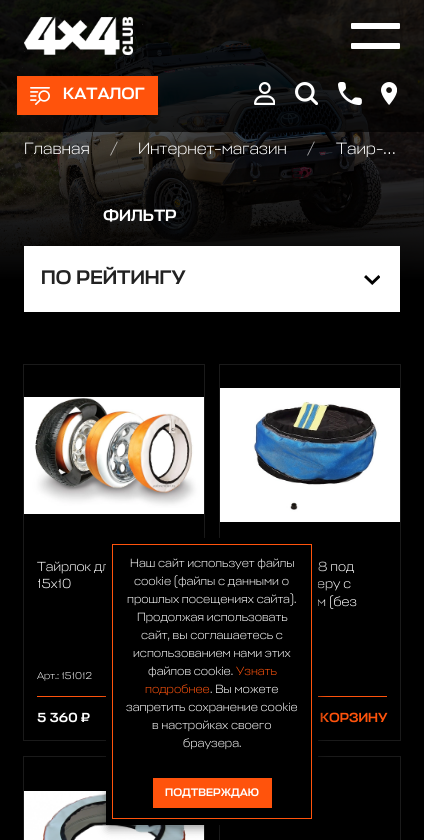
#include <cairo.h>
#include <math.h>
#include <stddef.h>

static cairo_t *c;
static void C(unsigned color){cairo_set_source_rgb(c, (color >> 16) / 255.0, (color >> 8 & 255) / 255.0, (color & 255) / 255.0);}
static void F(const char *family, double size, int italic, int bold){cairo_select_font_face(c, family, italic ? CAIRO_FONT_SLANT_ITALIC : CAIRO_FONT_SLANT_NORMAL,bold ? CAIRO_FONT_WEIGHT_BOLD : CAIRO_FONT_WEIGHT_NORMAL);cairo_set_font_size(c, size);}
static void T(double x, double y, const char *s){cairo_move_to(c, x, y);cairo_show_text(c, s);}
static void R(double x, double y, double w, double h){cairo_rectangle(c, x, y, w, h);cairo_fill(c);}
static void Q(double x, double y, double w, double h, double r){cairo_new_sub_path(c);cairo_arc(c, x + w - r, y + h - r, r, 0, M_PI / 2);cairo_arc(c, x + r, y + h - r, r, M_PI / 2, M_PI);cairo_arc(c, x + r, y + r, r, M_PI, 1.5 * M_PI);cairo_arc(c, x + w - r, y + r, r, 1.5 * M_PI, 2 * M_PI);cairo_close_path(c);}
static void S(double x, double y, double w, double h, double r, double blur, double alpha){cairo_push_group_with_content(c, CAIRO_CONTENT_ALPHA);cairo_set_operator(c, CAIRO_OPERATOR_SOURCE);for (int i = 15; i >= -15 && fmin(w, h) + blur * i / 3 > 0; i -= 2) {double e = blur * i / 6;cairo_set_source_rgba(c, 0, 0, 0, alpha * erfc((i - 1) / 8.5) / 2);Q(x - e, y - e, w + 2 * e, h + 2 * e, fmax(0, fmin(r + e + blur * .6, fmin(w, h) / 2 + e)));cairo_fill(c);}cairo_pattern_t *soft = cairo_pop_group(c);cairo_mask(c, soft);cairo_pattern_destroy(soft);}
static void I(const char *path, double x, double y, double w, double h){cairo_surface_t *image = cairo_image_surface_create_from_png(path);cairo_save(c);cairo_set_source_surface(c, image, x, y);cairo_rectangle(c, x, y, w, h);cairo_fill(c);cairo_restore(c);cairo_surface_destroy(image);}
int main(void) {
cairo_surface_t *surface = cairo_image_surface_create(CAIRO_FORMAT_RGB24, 424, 840);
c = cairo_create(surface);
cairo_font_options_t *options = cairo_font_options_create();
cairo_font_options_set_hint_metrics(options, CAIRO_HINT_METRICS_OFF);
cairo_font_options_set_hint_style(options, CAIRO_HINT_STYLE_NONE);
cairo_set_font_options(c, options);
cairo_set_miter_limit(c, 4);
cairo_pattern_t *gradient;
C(0x000000);
cairo_paint(c);
I("7.png",0,0,424,279);
gradient = cairo_pattern_create_linear(212,49,212,280);
cairo_pattern_add_color_stop_rgba(gradient,0,0,0,0,0);
cairo_pattern_add_color_stop_rgba(gradient,1,0,0,0,1);
cairo_set_source(c,gradient);
cairo_pattern_destroy(gradient);
R(0,55,424,224);
cairo_set_source_rgba(c,0,0,0,0.7);
R(0,0,424,132);
I("1.png",24,17,109,38);
C(0xffffff);
Q(351,23,49,6,1);
cairo_fill(c);
Q(351,43,49,6,1);
cairo_fill(c);
C(0xff530c);
R(17,76,141,39);
I("2.png",30,87,20,18);
F("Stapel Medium",16.5,0,0);
C(0xffffff);
T(63,99,"КАТАЛОГ");
I("3.png",254,82,21,23);
I("4.png",295,82,23,23);
I("5.png",338,82,24,23);
I("6.png",381,82,16,23);
F("Stapel Light",16.5,0,0);
T(24,154,"Главная");
C(0xb8b6b3);
T(110,154,"/");
C(0xffffff);
T(138,154,"Интернет-магазин");
C(0xa7a7a8);
T(307,154,"/");
C(0xffffff);
T(336,154,"Таир-…");
F("Stapel Medium",16.5,0,0);
T(103,221,"ФИЛЬТР");
R(24,246,376,66);
F("Stapel Medium",19.75,0,0);
C(0x222222);
T(41,284,"ПО РЕЙТИНГУ");
I("8.png",364,275,16,10);
cairo_rectangle(c,23.5,364.5,181,376);
C(0x1a1a1a);
cairo_set_line_width(c,1);
cairo_stroke(c);
I("9.png",24,397,180,117);
F("Stapel Light",13.25,0,0);
C(0xffffff);
T(37,571,"Тайрлок дл");
T(37,588,"15х10");
F("Stapel Light",10,0,0);
T(37,679,"Арт.: 151012");
C(0xff530c);
R(37,696,69,1);
F("Stapel Medium",13.25,0,0);
C(0xffffff);
T(37,722,"5 360 ₽");
cairo_rectangle(c,219.5,364.5,181,376);
C(0x1a1a1a);
cairo_stroke(c);
I("10.png",220,388,180,134);
F("Stapel Light",13.25,0,0);
C(0xffffff);
T(318,571,"8 под");
T(317,588,"еру с");
T(317,606,"м (без");
C(0xff530c);
R(318,696,69,1);
F("Stapel Medium",13.25,0,0);
T(320,722,"КОРЗИНУ");
cairo_rectangle(c,23.5,756.5,181,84);
C(0x1a1a1a);
cairo_stroke(c);
I("11.png",24,791,180,49);
cairo_rectangle(c,219.5,756.5,181,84);
cairo_stroke(c);
C(0x000000);
S(108,541,212,287,0,5,.4);
C(0x000000);
R(106,538,212,287);
cairo_rectangle(c,112.5,544.5,199,274);
C(0xff530c);
cairo_stroke(c);
F("Stapel Light",12,0,0);
C(0xffffff);
T(130,567,"Наш сайт использует файлы");
T(134,585,"cookie (файлы с данными о");
T(127,603,"прошлых посещениях сайта).");
T(137,621,"Продолжая использовать");
T(141,639,"сайт, вы соглашаетесь с");
T(133,657,"использованием нами этих");
T(148,675,"файлов cookie.");
C(0xff530c);
T(236,675,"Узнать");
T(145,693,"подробнее");
C(0xffffff);
T(210,693,". Вы можете");
T(126,711,"запретить сохранение cookie");
T(152,729,"в настройках своего");
T(183,747,"браузера.");
C(0xff530c);
R(153,778,119,30);
F("Stapel Medium",11,0,0);
C(0xffffff);
T(165,796,"ПОДТВЕРЖДАЮ");
cairo_surface_write_to_png(surface, "o.png");
cairo_font_options_destroy(options);
cairo_destroy(c);
cairo_surface_destroy(surface);
return 0;
}
